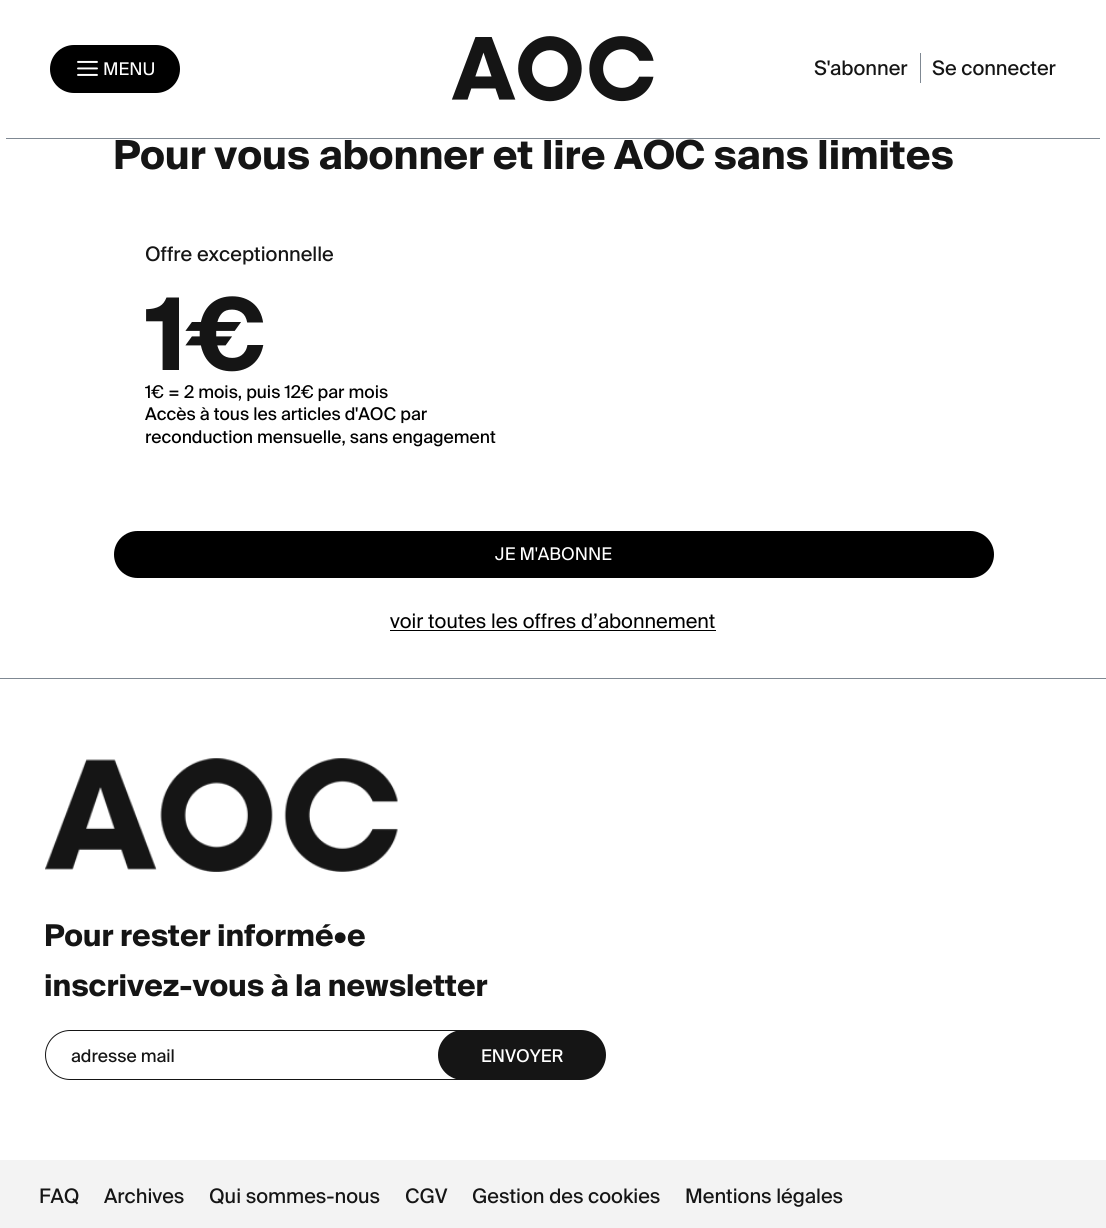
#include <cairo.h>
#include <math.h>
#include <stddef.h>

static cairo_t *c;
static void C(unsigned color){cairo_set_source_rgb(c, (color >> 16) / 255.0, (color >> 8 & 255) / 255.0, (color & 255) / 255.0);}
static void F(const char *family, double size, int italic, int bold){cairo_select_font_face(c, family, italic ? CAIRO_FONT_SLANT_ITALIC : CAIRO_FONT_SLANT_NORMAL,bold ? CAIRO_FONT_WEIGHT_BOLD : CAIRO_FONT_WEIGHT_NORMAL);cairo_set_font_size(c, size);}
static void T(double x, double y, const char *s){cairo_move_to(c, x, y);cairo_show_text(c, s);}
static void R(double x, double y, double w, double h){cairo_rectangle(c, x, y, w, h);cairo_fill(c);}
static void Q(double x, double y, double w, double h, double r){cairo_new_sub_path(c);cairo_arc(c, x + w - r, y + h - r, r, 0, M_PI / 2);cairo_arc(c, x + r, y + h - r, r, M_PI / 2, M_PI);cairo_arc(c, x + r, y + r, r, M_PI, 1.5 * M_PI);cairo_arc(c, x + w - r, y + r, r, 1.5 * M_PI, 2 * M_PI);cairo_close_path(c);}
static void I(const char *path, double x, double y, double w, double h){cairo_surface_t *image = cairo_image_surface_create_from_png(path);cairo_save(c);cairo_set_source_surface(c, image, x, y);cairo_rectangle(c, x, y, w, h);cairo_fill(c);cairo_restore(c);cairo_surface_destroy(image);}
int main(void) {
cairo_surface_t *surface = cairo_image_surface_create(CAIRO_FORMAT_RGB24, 1106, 1228);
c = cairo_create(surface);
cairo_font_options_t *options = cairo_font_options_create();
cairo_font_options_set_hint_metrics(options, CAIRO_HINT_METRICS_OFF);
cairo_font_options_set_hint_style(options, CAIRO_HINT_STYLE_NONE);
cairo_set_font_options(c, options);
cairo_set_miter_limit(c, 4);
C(0xffffff);
cairo_paint(c);
C(0x000000);
Q(50,45,130,48,24);
cairo_fill(c);
I("1.png",77,60,21,16);
F("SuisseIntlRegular",17.5,0,0);
C(0xffffff);
T(103,75,"MENU");
I("2.png",451,36,203,66);
F("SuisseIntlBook",20,0,0);
C(0x151515);
T(814,75,"S'abonner");
C(0x7f8892);
R(920,53,1,30);
C(0x151515);
T(932,75,"Se connecter");
C(0x7f8892);
R(6,138,1094,1);
F("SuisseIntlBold",40,0,1);
C(0x151515);
T(113,169,"Pour vous abonner et lire AOC sans limites");
F("SuisseIntlBook",20,0,0);
T(145,261,"Offre exceptionnelle");
F("SuisseIntlBold",100,0,1);
T(145,370,"1€");
F("SuisseIntlBook",17.5,0,0);
C(0x000000);
T(145,398,"1€ = 2 mois, puis 12€ par mois");
T(145,420,"Accès à tous les articles d'AOC par");
T(145,443,"reconduction mensuelle, sans engagement");
Q(114,531,880,47,23.5);
cairo_fill(c);
F("SuisseIntlRegular",17.5,0,0);
C(0xffffff);
T(495,560,"JE M'ABONNE");
F("SuisseIntlRegular",20,0,0);
C(0x000000);
T(390,628,"voir toutes les offres d’abonnement");
R(390,630,326,1);
C(0x7f8892);
R(0,678,1106,1);
I("3.png",45,758,353,114);
F("SuisseIntlBold",30,0,1);
C(0x151515);
T(44,946,"Pour rester informé•e");
T(44,996,"inscrivez-vous à la newsletter");
cairo_new_path(c);
cairo_move_to(c,70,1030.5);
cairo_line_to(c,462.5,1030.5);
cairo_line_to(c,462.5,1079.5);
cairo_line_to(c,70,1079.5);
cairo_curve_to(c,56.5,1079.5,45.5,1068.5,45.5,1055);
cairo_curve_to(c,45.5,1041.5,56.5,1030.5,70,1030.5);
cairo_close_path(c);
cairo_set_line_width(c,1);
cairo_stroke(c);
F("SuisseIntlBook",17.5,0,0);
T(71,1062,"adresse mail");
Q(438,1030,168,50,25);
cairo_fill(c);
C(0xffffff);
T(481,1062,"ENVOYER");
C(0xf3f3f3);
R(0,1160,1106,68);
F("SuisseIntlBook",20,0,0);
C(0x151515);
T(39,1203,"FAQ");
T(104,1203,"Archives");
T(209,1203,"Qui sommes-nous");
T(405,1203,"CGV");
T(472,1203,"Gestion des cookies");
T(685,1203,"Mentions légales");
cairo_surface_write_to_png(surface, "o.png");
cairo_font_options_destroy(options);
cairo_destroy(c);
cairo_surface_destroy(surface);
return 0;
}
